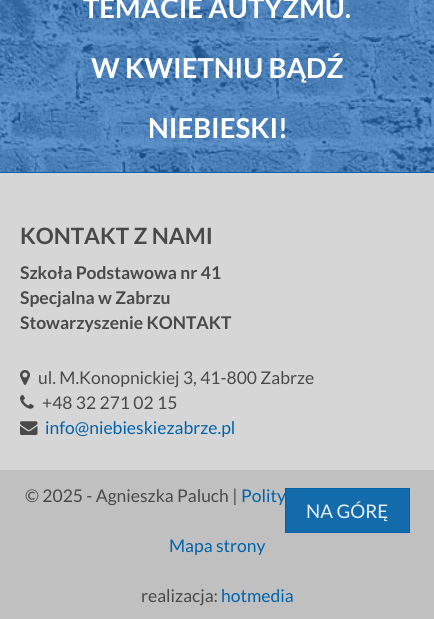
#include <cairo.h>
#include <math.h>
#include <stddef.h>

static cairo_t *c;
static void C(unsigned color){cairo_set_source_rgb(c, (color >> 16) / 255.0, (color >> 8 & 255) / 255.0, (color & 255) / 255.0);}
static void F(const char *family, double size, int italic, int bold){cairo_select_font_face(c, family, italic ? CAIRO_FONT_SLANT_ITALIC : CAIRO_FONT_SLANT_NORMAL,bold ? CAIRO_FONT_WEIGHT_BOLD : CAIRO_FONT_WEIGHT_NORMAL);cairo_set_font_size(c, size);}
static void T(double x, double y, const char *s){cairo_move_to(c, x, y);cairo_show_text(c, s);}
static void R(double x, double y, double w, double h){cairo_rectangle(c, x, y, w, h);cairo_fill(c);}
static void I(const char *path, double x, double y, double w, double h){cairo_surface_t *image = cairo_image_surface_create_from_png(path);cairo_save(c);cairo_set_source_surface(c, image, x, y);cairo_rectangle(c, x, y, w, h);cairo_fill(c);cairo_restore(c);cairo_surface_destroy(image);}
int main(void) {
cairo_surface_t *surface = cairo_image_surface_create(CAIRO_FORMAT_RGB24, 434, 619);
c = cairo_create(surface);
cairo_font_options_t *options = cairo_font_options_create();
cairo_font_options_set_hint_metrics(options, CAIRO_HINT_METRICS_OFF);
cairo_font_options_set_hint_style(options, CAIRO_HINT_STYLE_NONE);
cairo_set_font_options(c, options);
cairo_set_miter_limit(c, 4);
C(0x0062a9);
cairo_paint(c);
I("1.png",0,0,434,172);
F("Lato",27.5,0,1);
C(0xffffff);
T(83,18,"TEMACIE AUTYZMU.");
T(91,78,"W KWIETNIU BĄDŹ");
T(148,138,"NIEBIESKI!");
C(0xd6d6d6);
R(0,173,434,297);
F("Lato",22.5,0,1);
C(0x494949);
T(20,244,"KONTAKT Z NAMI");
F("Lato",17.5,0,1);
T(20,279,"Szkoła Podstawowa nr 41");
T(20,304,"Specjalna w Zabrzu");
T(20,329,"Stowarzyszenie KONTAKT");
I("2.png",20,370,10,15);
F("Lato",17.5,0,0);
T(38,384,"ul. M.Konopnickiej 3, 41-800 Zabrze");
I("3.png",20,395,14,14);
T(42,409,"+48 32 271 02 15");
I("4.png",20,421,18,14);
C(0x0062a9);
T(45,434,"info@niebieskiezabrze.pl");
C(0xc0c0c0);
R(0,470,434,149);
C(0x494949);
T(25,502,"© 2025 - Agnieszka Paluch |");
C(0x0062a9);
T(241,502,"Polity");
T(169,552,"Mapa strony");
C(0x494949);
T(141,602,"realizacja:");
C(0x0062a9);
T(221,602,"hotmedia");
cairo_set_source_rgba(c,0,0.384,0.663,0.9);
R(285,488,125,45);
cairo_rectangle(c,285.5,488.5,124,44);
cairo_set_line_width(c,1);
cairo_stroke(c);
F("Lato",18.75,0,0);
C(0xe7f0f7);
T(306,518,"NA GÓRĘ");
cairo_surface_write_to_png(surface, "o.png");
cairo_font_options_destroy(options);
cairo_destroy(c);
cairo_surface_destroy(surface);
return 0;
}
